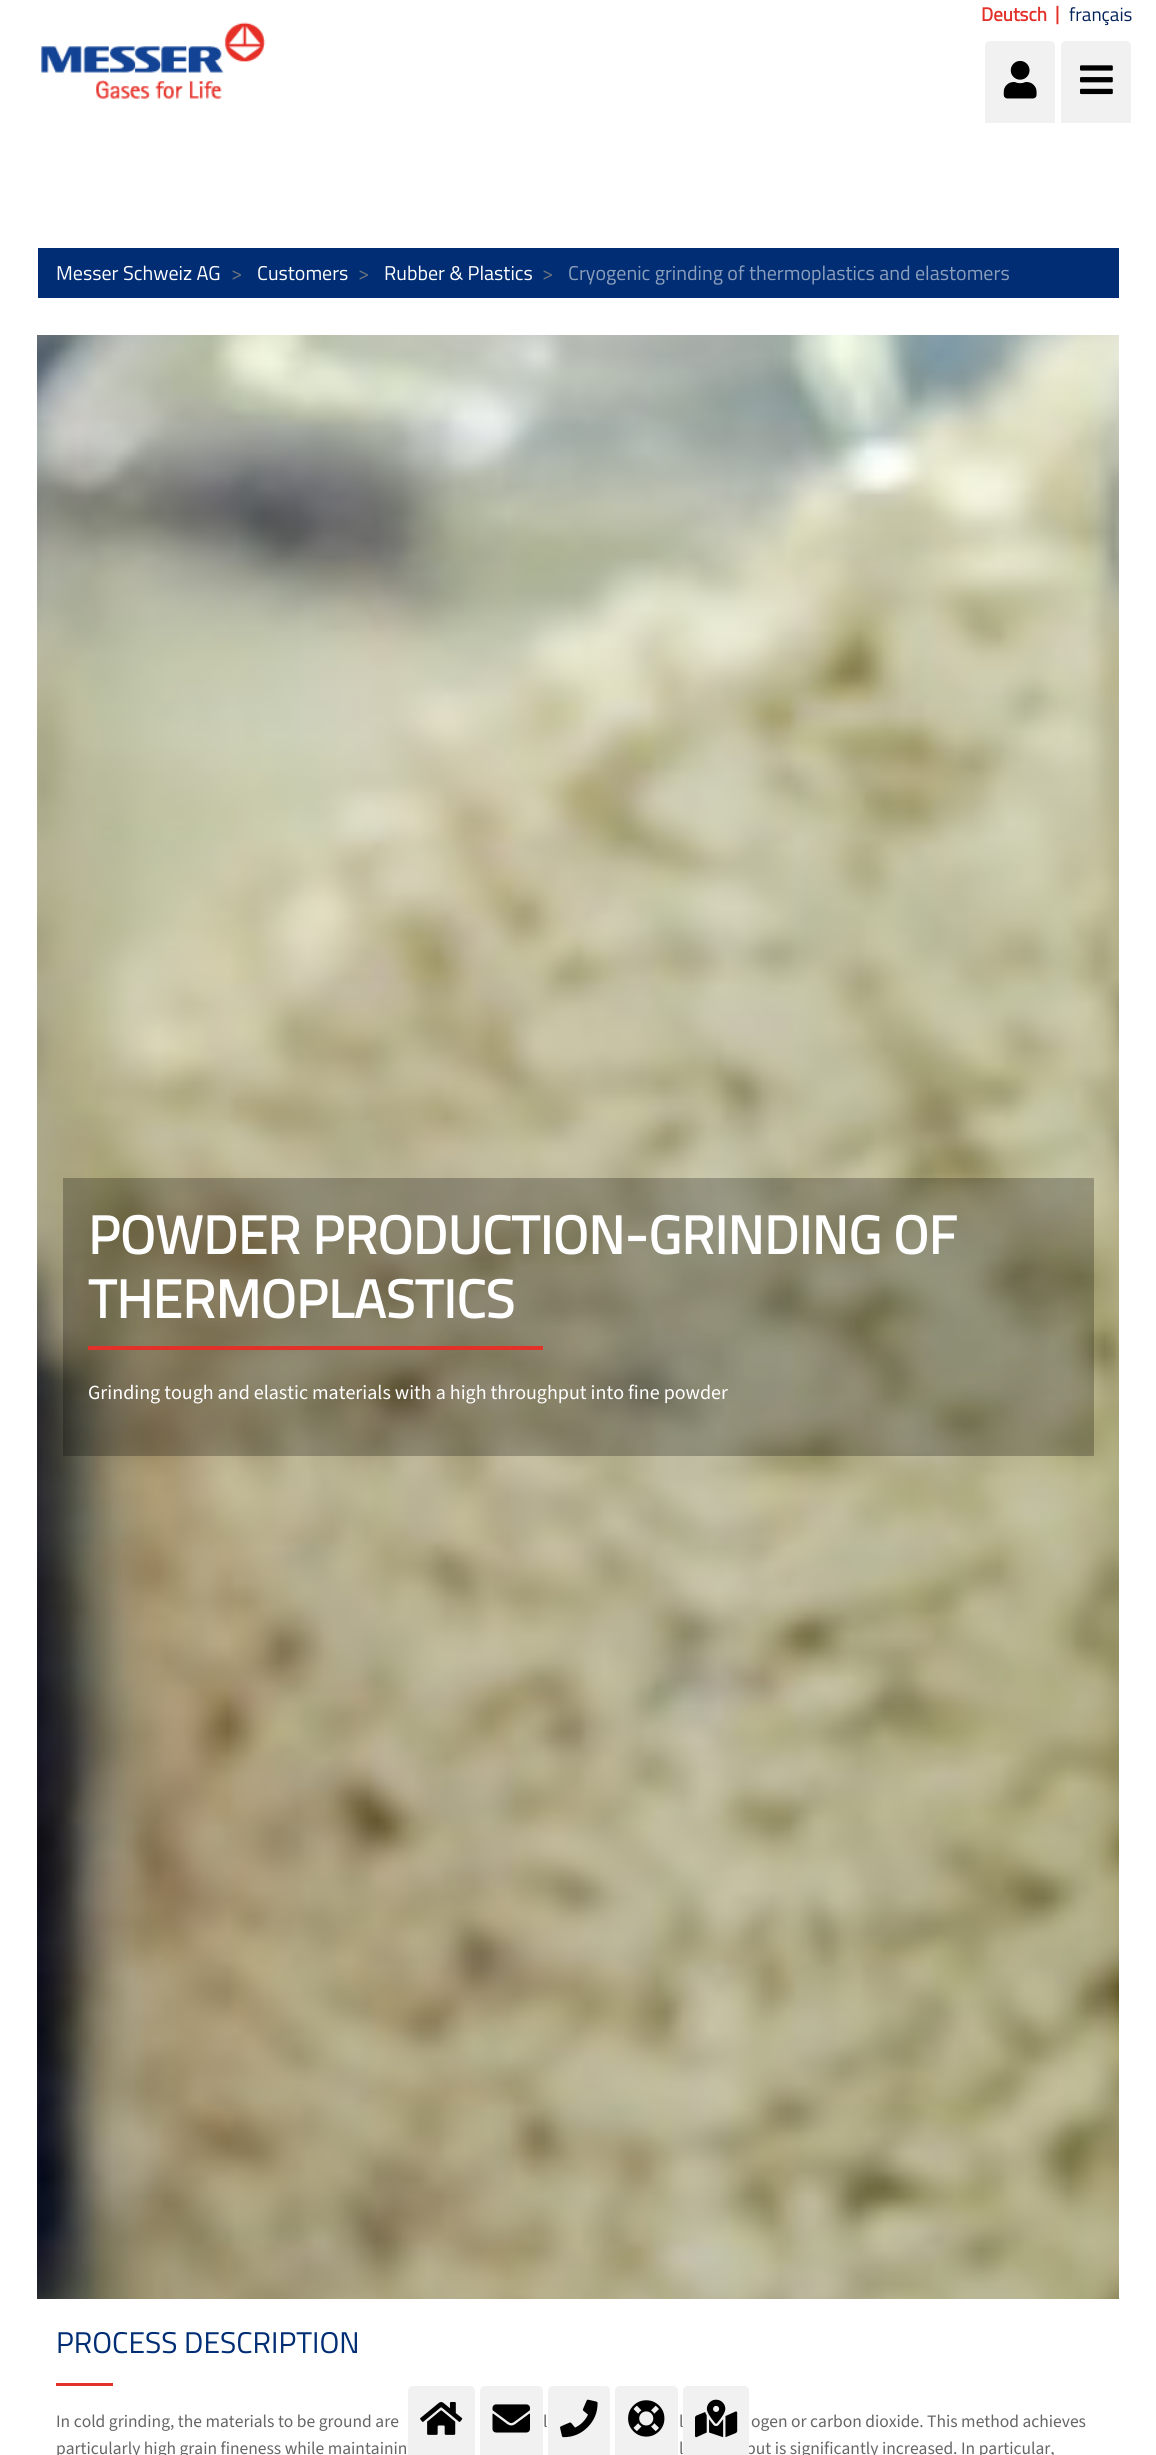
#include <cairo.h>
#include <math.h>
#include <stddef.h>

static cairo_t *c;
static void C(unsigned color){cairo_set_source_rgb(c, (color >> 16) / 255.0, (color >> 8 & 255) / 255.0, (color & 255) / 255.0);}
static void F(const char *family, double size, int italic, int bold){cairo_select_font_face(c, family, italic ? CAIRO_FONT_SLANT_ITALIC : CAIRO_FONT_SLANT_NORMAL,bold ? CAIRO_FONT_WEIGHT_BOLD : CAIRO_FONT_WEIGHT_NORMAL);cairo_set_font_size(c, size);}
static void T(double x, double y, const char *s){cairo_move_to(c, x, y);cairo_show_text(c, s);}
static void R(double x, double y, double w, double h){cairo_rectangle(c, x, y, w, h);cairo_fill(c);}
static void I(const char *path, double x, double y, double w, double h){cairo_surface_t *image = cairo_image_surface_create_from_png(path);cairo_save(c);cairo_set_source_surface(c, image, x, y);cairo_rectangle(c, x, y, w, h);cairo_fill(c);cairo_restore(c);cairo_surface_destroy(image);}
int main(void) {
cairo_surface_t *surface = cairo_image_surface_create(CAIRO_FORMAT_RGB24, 1156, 2455);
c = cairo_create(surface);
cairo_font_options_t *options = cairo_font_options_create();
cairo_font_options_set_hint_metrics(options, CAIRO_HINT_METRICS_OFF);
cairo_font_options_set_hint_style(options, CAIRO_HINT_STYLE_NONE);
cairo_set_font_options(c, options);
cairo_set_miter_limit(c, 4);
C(0xffffff);
cairo_paint(c);
F("Titillium Web",19,0,1);
C(0xe3312a);
T(981,21,"Deutsch");
T(1055,20,"|");
F("Titillium Web",19,0,0);
C(0x032359);
T(1069,21,"français");
I("1.png",41,22,225,77);
C(0xf1f1f1);
cairo_new_path(c);
cairo_move_to(c,990,41);
cairo_line_to(c,1050,41);
cairo_curve_to(c,1053,41,1055,43,1055,46);
cairo_line_to(c,1055,123);
cairo_line_to(c,985,123);
cairo_line_to(c,985,46);
cairo_curve_to(c,985,43,987,41,990,41);
cairo_close_path(c);
cairo_fill(c);
I("2.png",1003,60,34,39);
cairo_new_path(c);
cairo_move_to(c,1066,41);
cairo_line_to(c,1126,41);
cairo_curve_to(c,1129,41,1131,43,1131,46);
cairo_line_to(c,1131,123);
cairo_line_to(c,1061,123);
cairo_line_to(c,1061,46);
cairo_curve_to(c,1061,43,1063,41,1066,41);
cairo_close_path(c);
cairo_fill(c);
I("3.png",1080,65,33,30);
C(0x002d73);
R(38,248,1081,50);
F("Titillium Web",20,0,0);
C(0xffffff);
T(56,280,"Messer Schweiz AG");
C(0x6c757d);
T(231,280,">");
C(0xffffff);
T(257,280,"Customers");
C(0x6c757d);
T(358,280,">");
C(0xffffff);
T(384,280,"Rubber & Plastics");
C(0x6c757d);
T(542,280,">");
C(0x8b9ebc);
T(568,280,"Cryogenic grinding of thermoplastics and elastomers");
I("4.png",37,335,1082,1964);
cairo_set_source_rgba(c,0,0,0,0.25);
R(63,1178,1031,278);
F("Titillium Web",53.75,0,1);
C(0xffffff);
T(88,1254,"POWDER PRODUCTION-GRINDING OF");
T(88,1318,"THERMOPLASTICS");
C(0xe3312a);
R(88,1346,455,4);
F("Source Sans 3",20,0,0);
C(0xffffff);
T(88,1399,"Grinding tough and elastic materials with a high throughput into fine powder");
F("Titillium Web",30,0,0);
C(0x002d73);
T(56,2353,"PROCESS DESCRIPTION");
C(0xe3312a);
R(56,2383,57,3);
F("Source Sans 3",17.5,0,0);
C(0x666666);
T(56,2427,"In cold grinding, the materials to be ground are");
T(543,2427,"l");
T(679,2427,"l");
T(751,2427,"ogen or carbon dioxide. This method achieves");
T(56,2454,"particularly high grain fineness while maintainin");
T(679,2454,"l");
T(746,2454,"put is significantly increased. In particular,");
C(0xf1f1f1);
cairo_new_path(c);
cairo_move_to(c,413,2386);
cairo_line_to(c,470,2386);
cairo_curve_to(c,473,2386,475,2388,475,2391);
cairo_line_to(c,475,2455);
cairo_line_to(c,408,2455);
cairo_line_to(c,408,2391);
cairo_curve_to(c,408,2388,410,2386,413,2386);
cairo_close_path(c);
cairo_fill(c);
I("5.png",420,2402,43,33);
cairo_new_path(c);
cairo_move_to(c,485,2386);
cairo_line_to(c,538,2386);
cairo_curve_to(c,541,2386,543,2388,543,2391);
cairo_line_to(c,543,2455);
cairo_line_to(c,480,2455);
cairo_line_to(c,480,2391);
cairo_curve_to(c,480,2388,482,2386,485,2386);
cairo_close_path(c);
cairo_fill(c);
I("6.png",492,2404,38,29);
cairo_new_path(c);
cairo_move_to(c,553,2386);
cairo_line_to(c,605,2386);
cairo_curve_to(c,608,2386,610,2388,610,2391);
cairo_line_to(c,610,2455);
cairo_line_to(c,548,2455);
cairo_line_to(c,548,2391);
cairo_curve_to(c,548,2388,550,2386,553,2386);
cairo_close_path(c);
cairo_fill(c);
I("7.png",560,2399,38,39);
cairo_new_path(c);
cairo_move_to(c,620,2386);
cairo_line_to(c,673,2386);
cairo_curve_to(c,676,2386,678,2388,678,2391);
cairo_line_to(c,678,2455);
cairo_line_to(c,615,2455);
cairo_line_to(c,615,2391);
cairo_curve_to(c,615,2388,617,2386,620,2386);
cairo_close_path(c);
cairo_fill(c);
I("8.png",628,2400,37,37);
cairo_new_path(c);
cairo_move_to(c,688,2386);
cairo_line_to(c,744,2386);
cairo_curve_to(c,747,2386,749,2388,749,2391);
cairo_line_to(c,749,2455);
cairo_line_to(c,683,2455);
cairo_line_to(c,683,2391);
cairo_curve_to(c,683,2388,685,2386,688,2386);
cairo_close_path(c);
cairo_fill(c);
I("9.png",695,2399,43,39);
cairo_surface_write_to_png(surface, "o.png");
cairo_font_options_destroy(options);
cairo_destroy(c);
cairo_surface_destroy(surface);
return 0;
}
